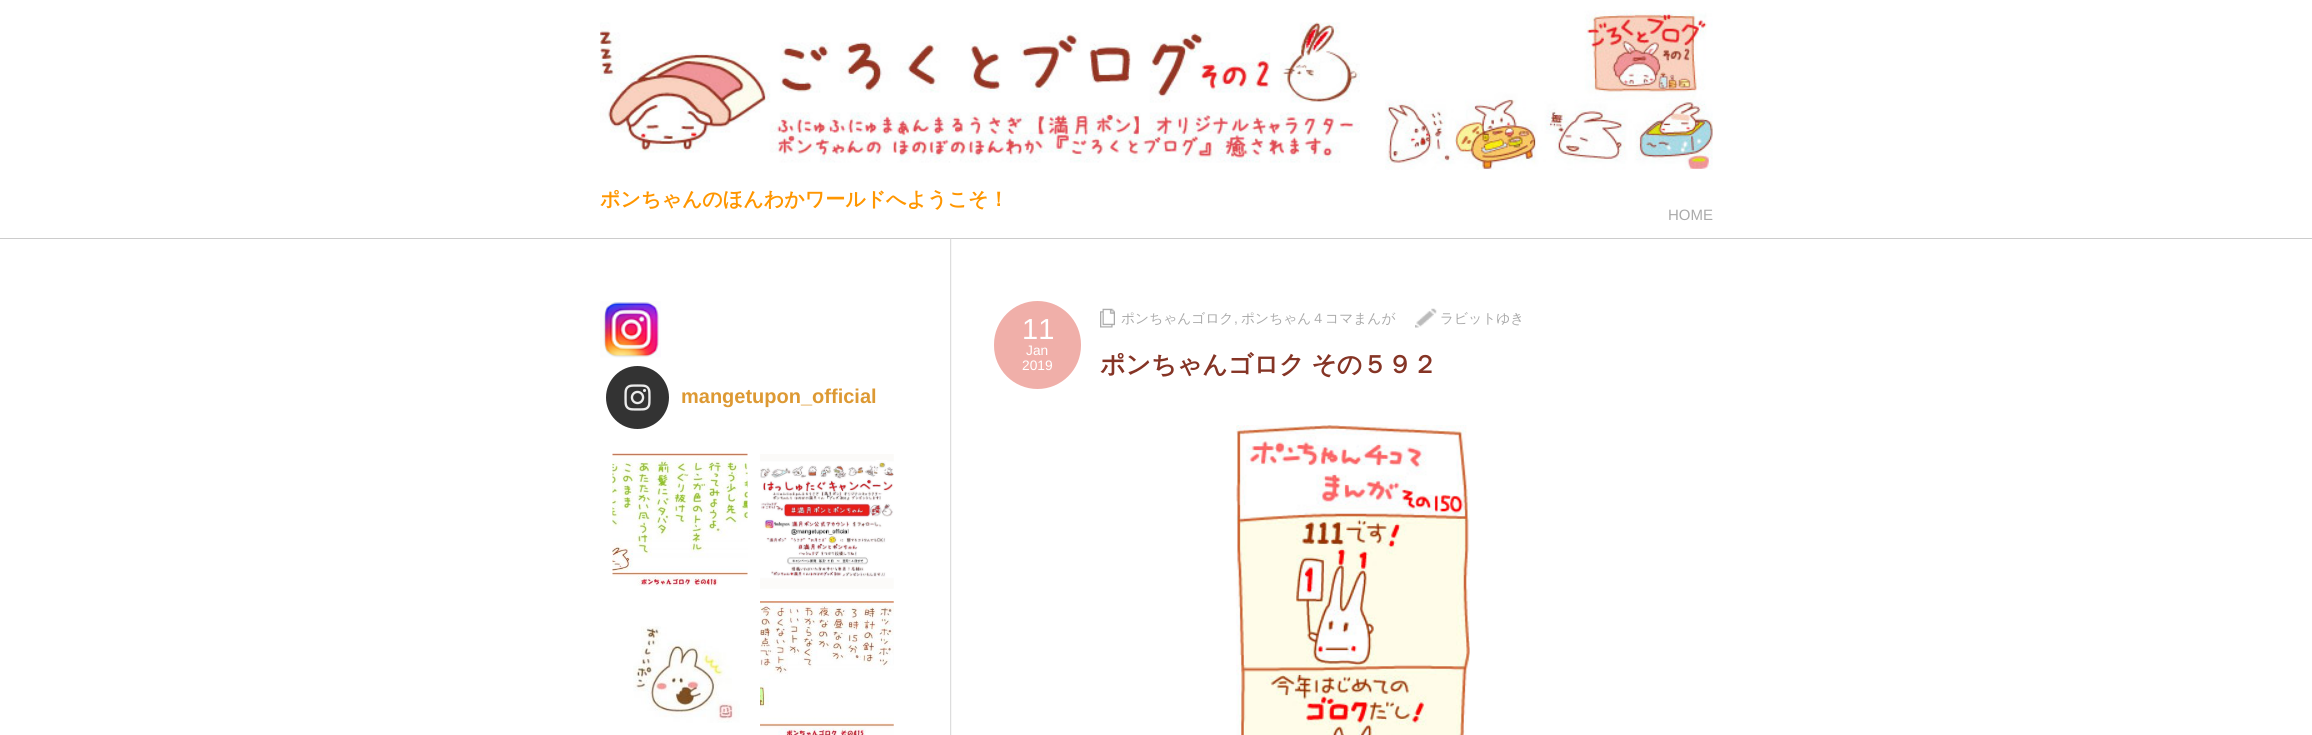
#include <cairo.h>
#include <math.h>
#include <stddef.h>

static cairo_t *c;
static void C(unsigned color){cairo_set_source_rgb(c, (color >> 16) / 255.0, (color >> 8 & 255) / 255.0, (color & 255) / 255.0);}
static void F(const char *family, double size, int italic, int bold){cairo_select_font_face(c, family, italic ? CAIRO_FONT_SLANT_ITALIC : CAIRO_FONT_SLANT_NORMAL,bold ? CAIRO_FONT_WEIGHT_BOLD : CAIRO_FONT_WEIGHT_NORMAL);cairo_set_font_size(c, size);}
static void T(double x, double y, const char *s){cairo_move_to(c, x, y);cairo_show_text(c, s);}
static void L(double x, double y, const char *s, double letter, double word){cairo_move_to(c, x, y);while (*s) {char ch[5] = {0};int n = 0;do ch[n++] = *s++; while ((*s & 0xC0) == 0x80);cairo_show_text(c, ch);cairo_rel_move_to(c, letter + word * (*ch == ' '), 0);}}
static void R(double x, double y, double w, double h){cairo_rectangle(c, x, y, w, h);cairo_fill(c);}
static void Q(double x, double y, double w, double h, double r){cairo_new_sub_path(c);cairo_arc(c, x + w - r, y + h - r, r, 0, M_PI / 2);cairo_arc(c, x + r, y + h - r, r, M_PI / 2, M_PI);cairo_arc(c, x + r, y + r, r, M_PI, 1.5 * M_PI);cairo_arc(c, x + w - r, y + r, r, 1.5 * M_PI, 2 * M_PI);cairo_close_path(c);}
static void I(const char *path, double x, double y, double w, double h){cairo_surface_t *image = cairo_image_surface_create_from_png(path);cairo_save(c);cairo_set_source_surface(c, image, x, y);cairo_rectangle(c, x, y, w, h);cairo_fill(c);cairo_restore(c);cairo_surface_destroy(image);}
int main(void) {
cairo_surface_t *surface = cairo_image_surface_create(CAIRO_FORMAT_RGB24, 2312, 735);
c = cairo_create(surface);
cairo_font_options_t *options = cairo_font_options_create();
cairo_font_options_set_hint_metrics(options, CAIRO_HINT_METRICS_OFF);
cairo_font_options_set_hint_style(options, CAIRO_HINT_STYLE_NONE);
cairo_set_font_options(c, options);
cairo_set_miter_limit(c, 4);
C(0xffffff);
cairo_paint(c);
C(0xcccccc);
R(0,238,2312,1);
F("WenQuanYi Zen Hei",20,0,1);
C(0xff9600);
T(600,206,"ポンちゃんのほんわかワールドへようこそ！");
I("1.png",600,22,760,141);
I("2.png",1385,10,328,160);
F("Liberation Sans",15,0,0);
C(0xaaaaaa);
T(1668,220,"HOME");
I("3.png",950,238,2,497);
C(0xf0afa9);
Q(994,301,87,88,43.5);
cairo_fill(c);
F("Liberation Sans",29,0,0);
C(0xffffff);
T(1022,339,"11");
F("Liberation Sans",13.75,0,0);
T(1026,355,"Jan");
T(1022,370,"2019");
I("4.png",1100,308,15,20);
F("WenQuanYi Zen Hei Medium",13.75,0,0);
C(0xaaaaaa);
T(1121,323,"ポンちゃんゴロク");
F("Liberation Sans",13.75,0,0);
T(1234,323,",");
F("WenQuanYi Zen Hei Medium",13.75,0,0);
T(1241,323,"ポンちゃん４コマまんが");
I("5.png",1415,308,22,20);
T(1440,323,"ラビットゆき");
F("WenQuanYi Zen Hei",25,0,1);
C(0x853425);
L(1100,373,"ポンちゃんゴロク その５９２",0,-1);
I("6.png",1236,425,234,310);
I("7.png",600,301,61,57);
C(0x333333);
cairo_arc(c,637.5,397.5,31.5,0,2 * M_PI);
cairo_fill(c);
I("8.png",624,384,27,27);
F("Liberation Sans",20,0,1);
C(0xdd9933);
T(681,403,"mangetupon_official");
I("9.png",612,453,136,133);
I("10.png",760,454,134,135);
I("11.png",873,460,15,15);
I("12.png",633,626,107,97);
I("13.png",760,601,134,134);
cairo_surface_write_to_png(surface, "o.png");
cairo_font_options_destroy(options);
cairo_destroy(c);
cairo_surface_destroy(surface);
return 0;
}
